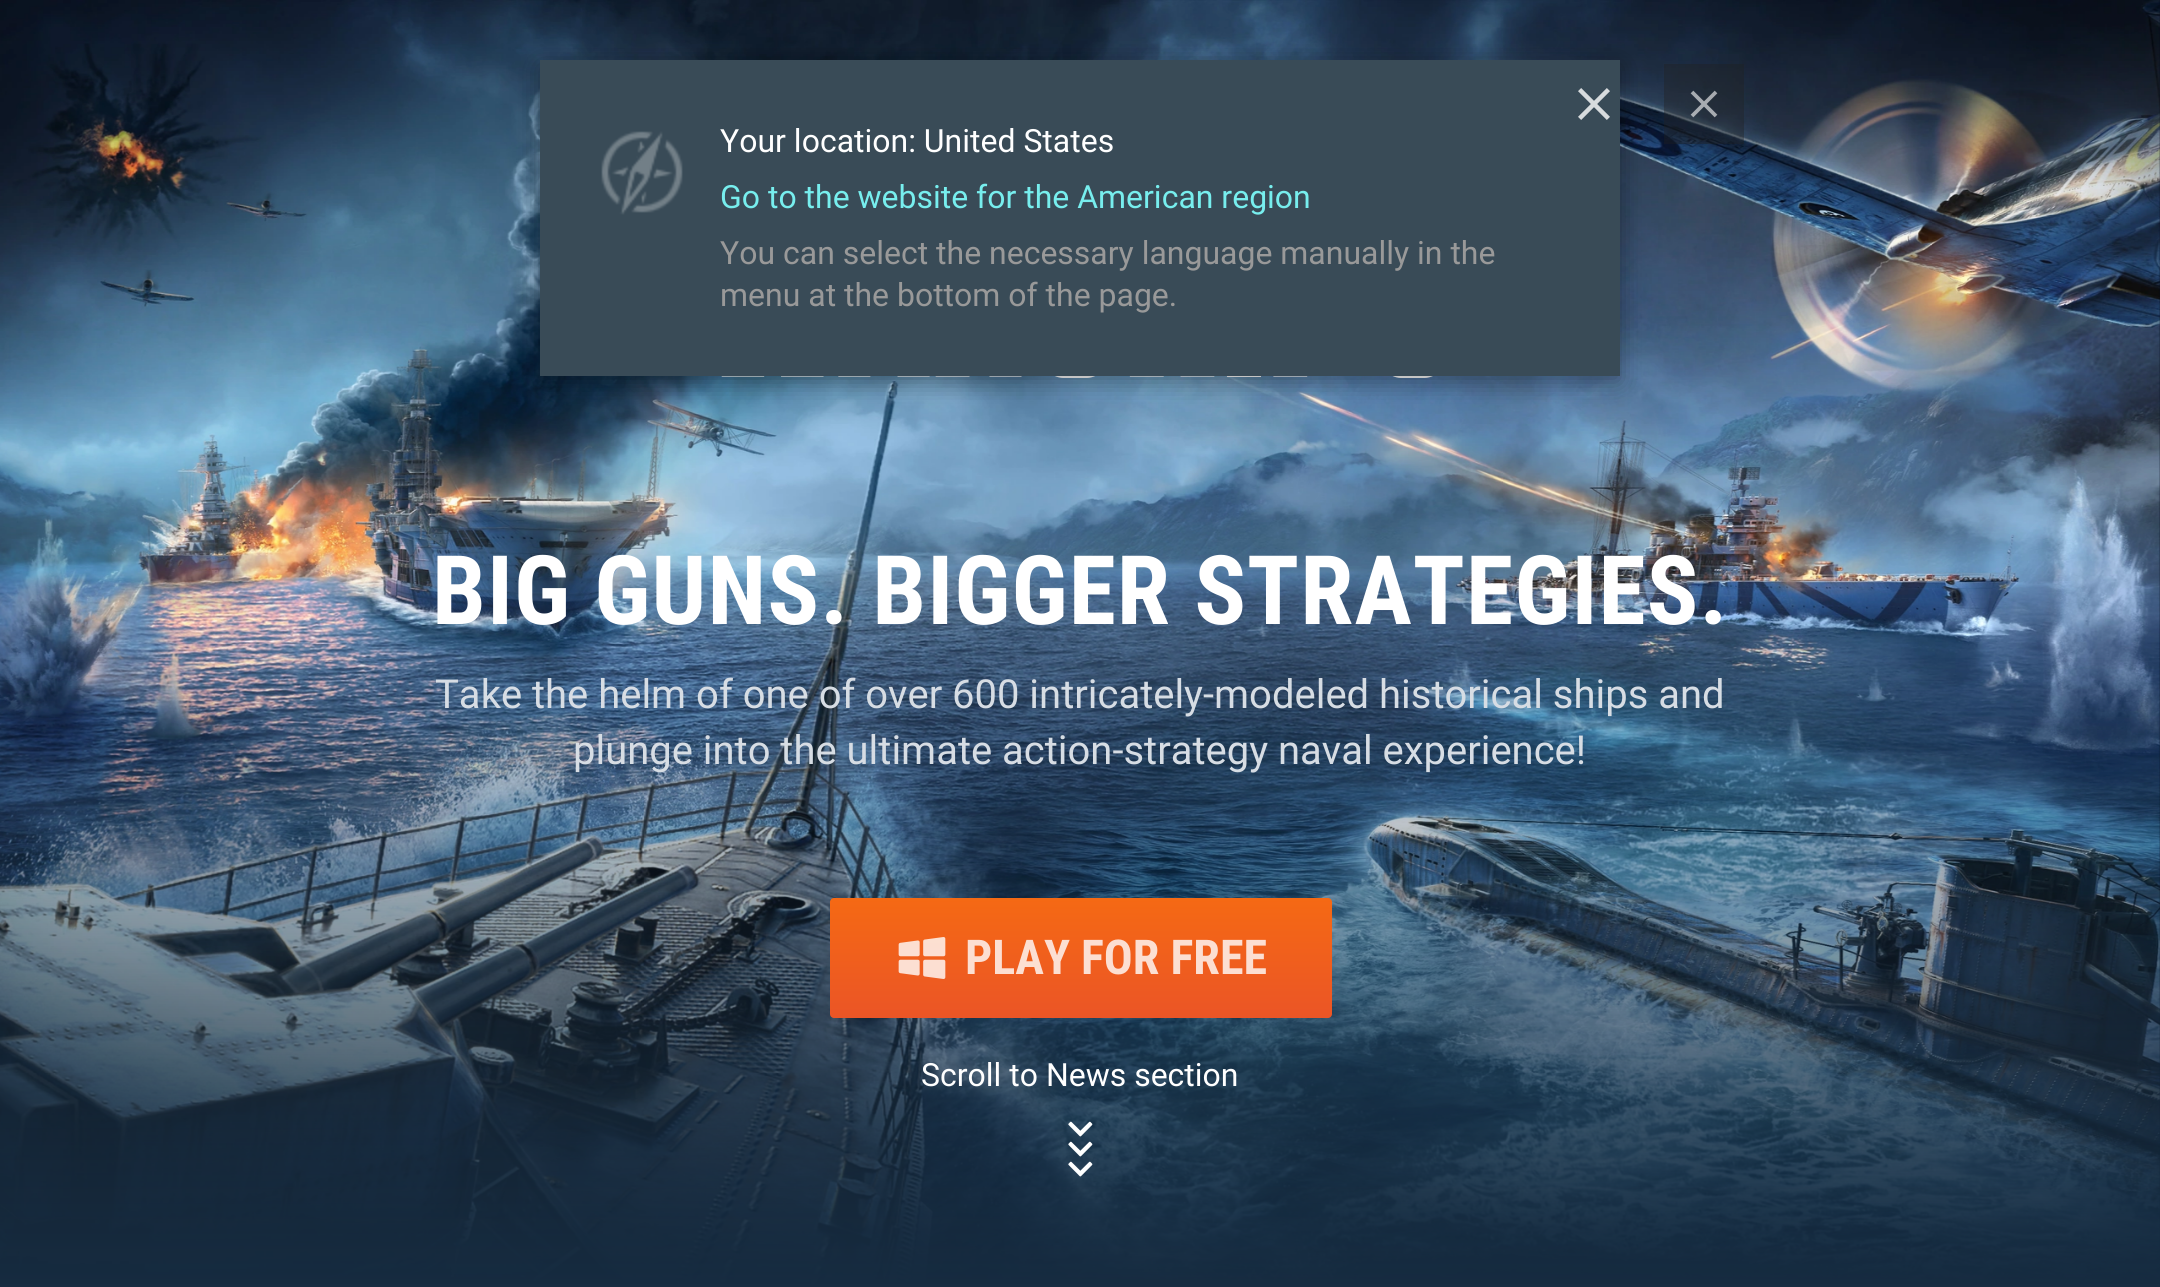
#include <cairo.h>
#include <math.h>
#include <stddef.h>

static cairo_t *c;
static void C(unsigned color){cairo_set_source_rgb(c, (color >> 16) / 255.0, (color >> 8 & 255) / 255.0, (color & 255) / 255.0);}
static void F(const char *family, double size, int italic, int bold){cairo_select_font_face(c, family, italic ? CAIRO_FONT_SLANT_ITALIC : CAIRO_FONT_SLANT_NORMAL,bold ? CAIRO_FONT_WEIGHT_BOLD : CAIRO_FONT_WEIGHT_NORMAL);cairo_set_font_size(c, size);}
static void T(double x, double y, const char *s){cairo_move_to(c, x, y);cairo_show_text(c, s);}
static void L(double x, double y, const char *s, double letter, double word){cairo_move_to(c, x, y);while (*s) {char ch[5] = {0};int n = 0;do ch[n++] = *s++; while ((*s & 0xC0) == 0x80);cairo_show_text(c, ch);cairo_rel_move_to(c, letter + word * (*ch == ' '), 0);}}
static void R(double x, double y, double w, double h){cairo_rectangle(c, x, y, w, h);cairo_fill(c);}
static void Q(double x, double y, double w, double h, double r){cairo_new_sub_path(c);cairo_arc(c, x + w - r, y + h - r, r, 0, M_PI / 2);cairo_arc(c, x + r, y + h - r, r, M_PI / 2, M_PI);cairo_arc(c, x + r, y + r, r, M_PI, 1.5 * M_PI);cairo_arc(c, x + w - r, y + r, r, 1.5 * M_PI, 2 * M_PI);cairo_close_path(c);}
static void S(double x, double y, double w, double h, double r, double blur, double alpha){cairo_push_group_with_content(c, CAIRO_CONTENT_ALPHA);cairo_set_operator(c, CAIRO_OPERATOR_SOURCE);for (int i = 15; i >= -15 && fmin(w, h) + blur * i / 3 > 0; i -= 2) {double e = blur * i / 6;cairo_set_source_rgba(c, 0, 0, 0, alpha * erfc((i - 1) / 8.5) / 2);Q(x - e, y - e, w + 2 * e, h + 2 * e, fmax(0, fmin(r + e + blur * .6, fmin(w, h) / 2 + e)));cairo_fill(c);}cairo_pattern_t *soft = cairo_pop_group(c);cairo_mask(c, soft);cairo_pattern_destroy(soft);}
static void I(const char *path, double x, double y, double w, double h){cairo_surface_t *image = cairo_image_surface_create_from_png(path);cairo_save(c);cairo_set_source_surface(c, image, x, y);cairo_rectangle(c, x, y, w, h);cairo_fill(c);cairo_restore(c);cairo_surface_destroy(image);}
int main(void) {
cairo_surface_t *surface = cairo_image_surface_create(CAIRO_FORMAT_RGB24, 2160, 1287);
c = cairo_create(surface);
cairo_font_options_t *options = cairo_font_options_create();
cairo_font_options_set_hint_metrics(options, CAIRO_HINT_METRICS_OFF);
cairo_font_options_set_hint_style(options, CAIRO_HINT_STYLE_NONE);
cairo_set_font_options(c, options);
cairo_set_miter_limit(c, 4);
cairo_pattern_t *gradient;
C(0xffffff);
cairo_paint(c);
I("3.png",2159,0,1,1284);
I("4.png",0,0,2160,1284);
I("6.png",721,376,712,2);
C(0x000000);
S(540,66,1080,316,0,12,.16);
S(540,66,1080,316,0,12,.23);
C(0x394b57);
R(540,60,1080,316);
I("1.png",1578,88,32,32);
I("2.png",601,131,82,84);
F("Roboto",32,0,0);
C(0xffffff);
T(720,152,"Your location: United States");
C(0x77eeee);
T(720,208,"Go to the website for the American region");
C(0x999999);
T(720,264,"You can select the necessary language manually in the");
T(720,306,"menu at the bottom of the page.");
cairo_set_source_rgba(c,0.133,0.133,0.133,0.38);
R(1664,64,80,80);
I("5.png",1690,90,28,28);
F("Roboto Condensed",96,0,1);
C(0xffffff);
L(432,624,"BIG GUNS. BIGGER STRATEGIES.",1.05,0);
gradient = cairo_pattern_create_linear(1080,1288,1080,644);
cairo_pattern_add_color_stop_rgba(gradient,0,0.086,0.169,0.251,1);
cairo_pattern_add_color_stop_rgba(gradient,1,0.086,0.169,0.251,0);
cairo_set_source(c,gradient);
cairo_pattern_destroy(gradient);
R(0,658,2160,629);
F("Roboto",40,0,0);
C(0xd7dde4);
T(435,708,"Take the helm of one of over 600 intricately-modeled historical ships and");
T(573,764,"plunge into the ultimate action-strategy naval experience!");
gradient = cairo_pattern_create_linear(1081,898,1081,1018);
cairo_pattern_add_color_stop_rgba(gradient,0,0.961,0.412,0.078,1);
cairo_pattern_add_color_stop_rgba(gradient,1,0.922,0.333,0.149,1);
cairo_set_source(c,gradient);
cairo_pattern_destroy(gradient);
Q(830,898,502,120,4);
cairo_fill(c);
I("7.png",898,937,48,42);
F("Roboto Condensed",48,0,1);
C(0xfcdfd2);
T(965,974,"PLAY FOR FREE");
F("Roboto",32,0,0);
C(0xffffff);
T(921,1086,"Scroll to News section");
I("8.png",1068,1121,25,16);
I("9.png",1068,1141,25,16);
I("10.png",1068,1161,25,16);
cairo_surface_write_to_png(surface, "o.png");
cairo_font_options_destroy(options);
cairo_destroy(c);
cairo_surface_destroy(surface);
return 0;
}
